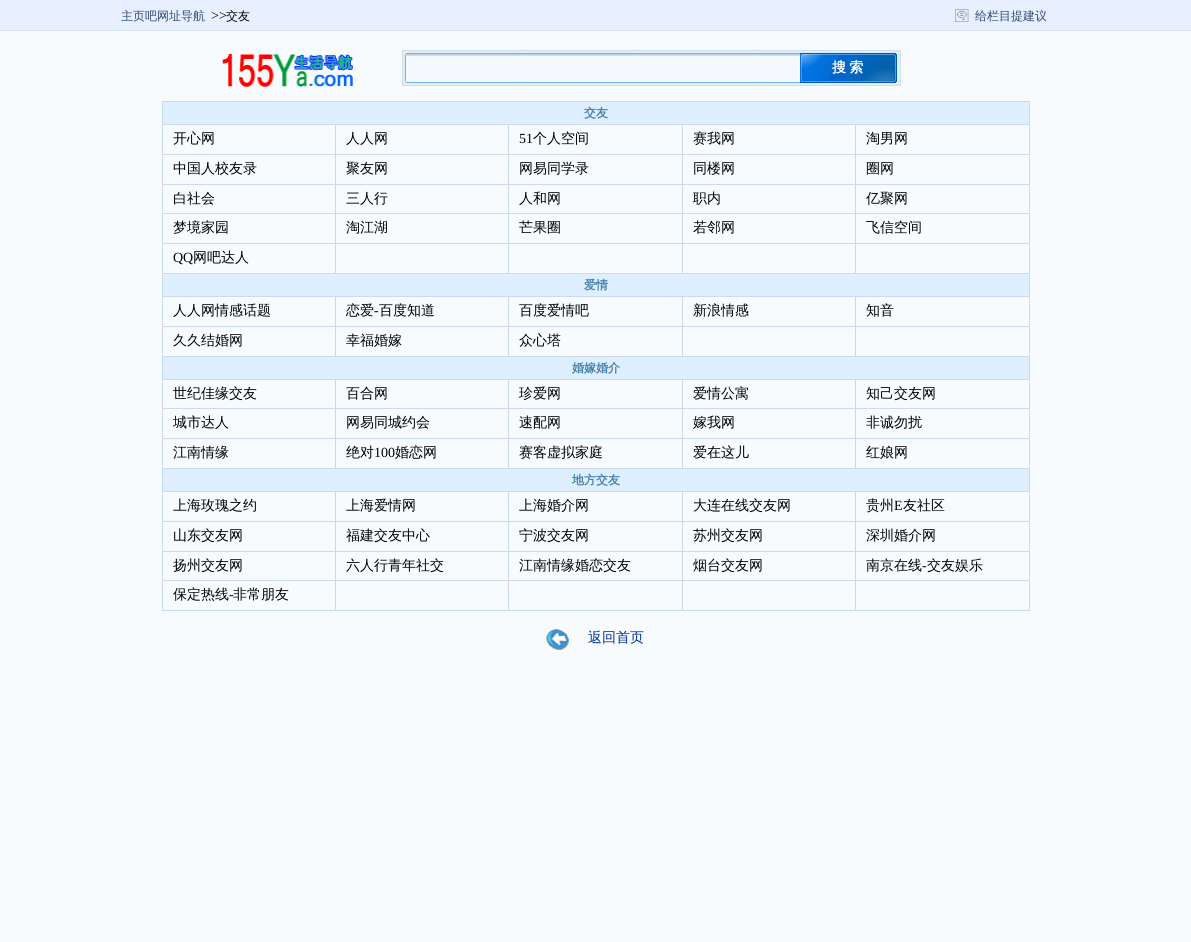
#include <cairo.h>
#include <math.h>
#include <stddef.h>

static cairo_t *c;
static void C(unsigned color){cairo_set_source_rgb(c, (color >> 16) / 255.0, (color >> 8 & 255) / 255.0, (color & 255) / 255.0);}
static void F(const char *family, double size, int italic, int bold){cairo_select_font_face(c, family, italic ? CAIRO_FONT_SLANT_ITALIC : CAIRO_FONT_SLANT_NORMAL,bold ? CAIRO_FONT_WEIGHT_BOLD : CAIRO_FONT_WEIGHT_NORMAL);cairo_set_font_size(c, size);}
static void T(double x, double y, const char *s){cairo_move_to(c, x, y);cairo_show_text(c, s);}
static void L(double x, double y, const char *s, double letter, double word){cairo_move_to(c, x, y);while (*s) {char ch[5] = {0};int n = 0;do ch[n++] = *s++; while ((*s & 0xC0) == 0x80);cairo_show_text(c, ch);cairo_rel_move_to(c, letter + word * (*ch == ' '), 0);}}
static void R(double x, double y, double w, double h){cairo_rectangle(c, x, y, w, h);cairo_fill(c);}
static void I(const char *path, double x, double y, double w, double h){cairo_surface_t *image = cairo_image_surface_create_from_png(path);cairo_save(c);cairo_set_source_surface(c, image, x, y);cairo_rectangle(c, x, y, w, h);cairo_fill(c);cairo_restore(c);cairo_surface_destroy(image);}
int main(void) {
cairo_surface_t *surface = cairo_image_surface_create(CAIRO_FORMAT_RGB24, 1191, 942);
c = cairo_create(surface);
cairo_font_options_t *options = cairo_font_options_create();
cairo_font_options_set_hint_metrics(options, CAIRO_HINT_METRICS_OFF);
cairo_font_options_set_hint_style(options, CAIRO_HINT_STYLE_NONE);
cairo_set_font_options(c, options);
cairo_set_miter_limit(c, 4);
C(0xf8fbfe);
cairo_paint(c);
C(0xe8f0ff);
R(0,0,1191,30);
C(0xd7e3f0);
R(0,30,1191,1);
F("WenQuanYi Zen Hei Medium",12,0,0);
C(0x2d4a78);
T(121,20,"主页吧网址导航");
F("Liberation Serif",14,0,0);
C(0x000000);
T(211,20,">>");
F("WenQuanYi Zen Hei Medium",12,0,0);
T(226,20,"交友");
I("1.png",955,9,14,13);
C(0x2d4a78);
T(975,20,"给栏目提建议");
I("2.png",222,54,131,33);
I("3.png",402,50,499,36);
I("4.png",402,50,4,36);
I("5.png",800,53,97,30);
F("WenQuanYi Zen Hei",14,0,1);
C(0xffffff);
L(832,72,"搜 索",0,-1);
I("6.png",897,51,4,34);
C(0xdef0ff);
cairo_rectangle(c,162.5,101.5,867,23);
cairo_fill_preserve(c);
C(0xccdbec);
cairo_set_line_width(c,1);
cairo_stroke(c);
F("WenQuanYi Zen Hei",12,0,1);
C(0x4681ac);
T(584,117,"交友");
C(0xccdbec);
R(1029,125,1,149);
R(162,154,867,1);
R(162,125,1,30);
F("WenQuanYi Zen Hei Medium",14,0,0);
C(0x000000);
T(173,143,"开心网");
C(0xccdbec);
R(335,125,1,30);
C(0x000000);
T(346,143,"人人网");
C(0xccdbec);
R(508,125,1,30);
F("Liberation Serif",14,0,0);
C(0x000000);
T(519,143,"51");
F("WenQuanYi Zen Hei Medium",14,0,0);
T(533,143,"个人空间");
C(0xccdbec);
R(682,125,1,30);
C(0x000000);
T(693,143,"赛我网");
C(0xccdbec);
R(855,125,1,30);
C(0x000000);
T(866,143,"淘男网");
C(0xccdbec);
R(162,184,867,1);
R(162,155,1,30);
C(0x000000);
T(173,173,"中国人校友录");
C(0xccdbec);
R(335,155,1,30);
C(0x000000);
T(346,173,"聚友网");
C(0xccdbec);
R(508,155,1,30);
C(0x000000);
T(519,173,"网易同学录");
C(0xccdbec);
R(682,155,1,30);
C(0x000000);
T(693,173,"同楼网");
C(0xccdbec);
R(855,155,1,30);
C(0x000000);
T(866,173,"圈网");
C(0xccdbec);
R(162,213,867,1);
R(162,185,1,29);
C(0x000000);
T(173,203,"白社会");
C(0xccdbec);
R(335,185,1,29);
C(0x000000);
T(346,203,"三人行");
C(0xccdbec);
R(508,185,1,29);
C(0x000000);
T(519,203,"人和网");
C(0xccdbec);
R(682,185,1,29);
C(0x000000);
T(693,203,"职内");
C(0xccdbec);
R(855,185,1,29);
C(0x000000);
T(866,203,"亿聚网");
C(0xccdbec);
R(162,243,867,1);
R(162,214,1,60);
C(0x000000);
T(173,232,"梦境家园");
C(0xccdbec);
R(335,214,1,60);
C(0x000000);
T(346,232,"淘江湖");
C(0xccdbec);
R(508,214,1,60);
C(0x000000);
T(519,232,"芒果圈");
C(0xccdbec);
R(682,214,1,60);
C(0x000000);
T(693,232,"若邻网");
C(0xccdbec);
R(855,214,1,60);
C(0x000000);
T(866,232,"飞信空间");
F("Liberation Serif",14,0,0);
T(173,262,"QQ");
F("WenQuanYi Zen Hei Medium",14,0,0);
T(193,262,"网吧达人");
C(0xdef0ff);
cairo_rectangle(c,162.5,273.5,867,23);
cairo_fill_preserve(c);
C(0xccdbec);
cairo_stroke(c);
F("WenQuanYi Zen Hei",12,0,1);
C(0x4681ac);
T(584,289,"爱情");
C(0xccdbec);
R(1029,297,1,60);
R(162,326,867,1);
R(162,297,1,60);
F("WenQuanYi Zen Hei Medium",14,0,0);
C(0x000000);
T(173,315,"人人网情感话题");
C(0xccdbec);
R(335,297,1,60);
C(0x000000);
T(346,315,"恋爱");
F("Liberation Serif",14,0,0);
T(374,315,"-");
F("WenQuanYi Zen Hei Medium",14,0,0);
T(379,315,"百度知道");
C(0xccdbec);
R(508,297,1,60);
C(0x000000);
T(519,315,"百度爱情吧");
C(0xccdbec);
R(682,297,1,60);
C(0x000000);
T(693,315,"新浪情感");
C(0xccdbec);
R(855,297,1,60);
C(0x000000);
T(866,315,"知音");
T(173,345,"久久结婚网");
T(346,345,"幸福婚嫁");
T(519,345,"众心塔");
C(0xdef0ff);
cairo_rectangle(c,162.5,356.5,867,23);
cairo_fill_preserve(c);
C(0xccdbec);
cairo_stroke(c);
F("WenQuanYi Zen Hei",12,0,1);
C(0x4681ac);
T(572,372,"婚嫁婚介");
C(0xccdbec);
R(1029,380,1,89);
R(162,408,867,1);
R(162,380,1,29);
F("WenQuanYi Zen Hei Medium",14,0,0);
C(0x000000);
T(173,398,"世纪佳缘交友");
C(0xccdbec);
R(335,380,1,29);
C(0x000000);
T(346,398,"百合网");
C(0xccdbec);
R(508,380,1,29);
C(0x000000);
T(519,398,"珍爱网");
C(0xccdbec);
R(682,380,1,29);
C(0x000000);
T(693,398,"爱情公寓");
C(0xccdbec);
R(855,380,1,29);
C(0x000000);
T(866,398,"知己交友网");
C(0xccdbec);
R(162,438,867,1);
R(162,409,1,60);
C(0x000000);
T(173,427,"城市达人");
C(0xccdbec);
R(335,409,1,60);
C(0x000000);
T(346,427,"网易同城约会");
C(0xccdbec);
R(508,409,1,60);
C(0x000000);
T(519,427,"速配网");
C(0xccdbec);
R(682,409,1,60);
C(0x000000);
T(693,427,"嫁我网");
C(0xccdbec);
R(855,409,1,60);
C(0x000000);
T(866,427,"非诚勿扰");
T(173,457,"江南情缘");
T(346,457,"绝对");
F("Liberation Serif",14,0,0);
T(374,457,"100");
F("WenQuanYi Zen Hei Medium",14,0,0);
T(395,457,"婚恋网");
T(519,457,"赛客虚拟家庭");
T(693,457,"爱在这儿");
T(866,457,"红娘网");
C(0xdef0ff);
cairo_rectangle(c,162.5,468.5,867,23);
cairo_fill_preserve(c);
C(0xccdbec);
cairo_stroke(c);
F("WenQuanYi Zen Hei",12,0,1);
C(0x4681ac);
T(572,484,"地方交友");
C(0xccdbec);
R(1029,492,1,119);
R(162,521,867,1);
R(162,492,1,30);
F("WenQuanYi Zen Hei Medium",14,0,0);
C(0x000000);
T(173,510,"上海玫瑰之约");
C(0xccdbec);
R(335,492,1,30);
C(0x000000);
T(346,510,"上海爱情网");
C(0xccdbec);
R(508,492,1,30);
C(0x000000);
T(519,510,"上海婚介网");
C(0xccdbec);
R(682,492,1,30);
C(0x000000);
T(693,510,"大连在线交友网");
C(0xccdbec);
R(855,492,1,30);
C(0x000000);
T(866,510,"贵州");
F("Liberation Serif",14,0,0);
T(894,510,"E");
F("WenQuanYi Zen Hei Medium",14,0,0);
T(903,510,"友社区");
C(0xccdbec);
R(162,551,867,1);
R(162,522,1,30);
C(0x000000);
T(173,540,"山东交友网");
C(0xccdbec);
R(335,522,1,30);
C(0x000000);
T(346,540,"福建交友中心");
C(0xccdbec);
R(508,522,1,30);
C(0x000000);
T(519,540,"宁波交友网");
C(0xccdbec);
R(682,522,1,30);
C(0x000000);
T(693,540,"苏州交友网");
C(0xccdbec);
R(855,522,1,30);
C(0x000000);
T(866,540,"深圳婚介网");
C(0xccdbec);
R(162,580,867,1);
R(162,552,1,29);
C(0x000000);
T(173,570,"扬州交友网");
C(0xccdbec);
R(335,552,1,29);
C(0x000000);
T(346,570,"六人行青年社交");
C(0xccdbec);
R(508,552,1,29);
C(0x000000);
T(519,570,"江南情缘婚恋交友");
C(0xccdbec);
R(682,552,1,29);
C(0x000000);
T(693,570,"烟台交友网");
C(0xccdbec);
R(855,552,1,29);
C(0x000000);
T(866,570,"南京在线");
F("Liberation Serif",14,0,0);
T(922,570,"-");
F("WenQuanYi Zen Hei Medium",14,0,0);
T(927,570,"交友娱乐");
C(0xccdbec);
R(162,610,867,1);
R(162,581,1,30);
C(0x000000);
T(173,599,"保定热线");
F("Liberation Serif",14,0,0);
T(229,599,"-");
F("WenQuanYi Zen Hei Medium",14,0,0);
T(233,599,"非常朋友");
C(0xccdbec);
R(335,581,1,30);
R(508,581,1,30);
R(682,581,1,30);
R(855,581,1,30);
I("7.png",546,628,24,23);
C(0x003399);
T(588,642,"返回首页");
cairo_surface_write_to_png(surface, "o.png");
cairo_font_options_destroy(options);
cairo_destroy(c);
cairo_surface_destroy(surface);
return 0;
}
